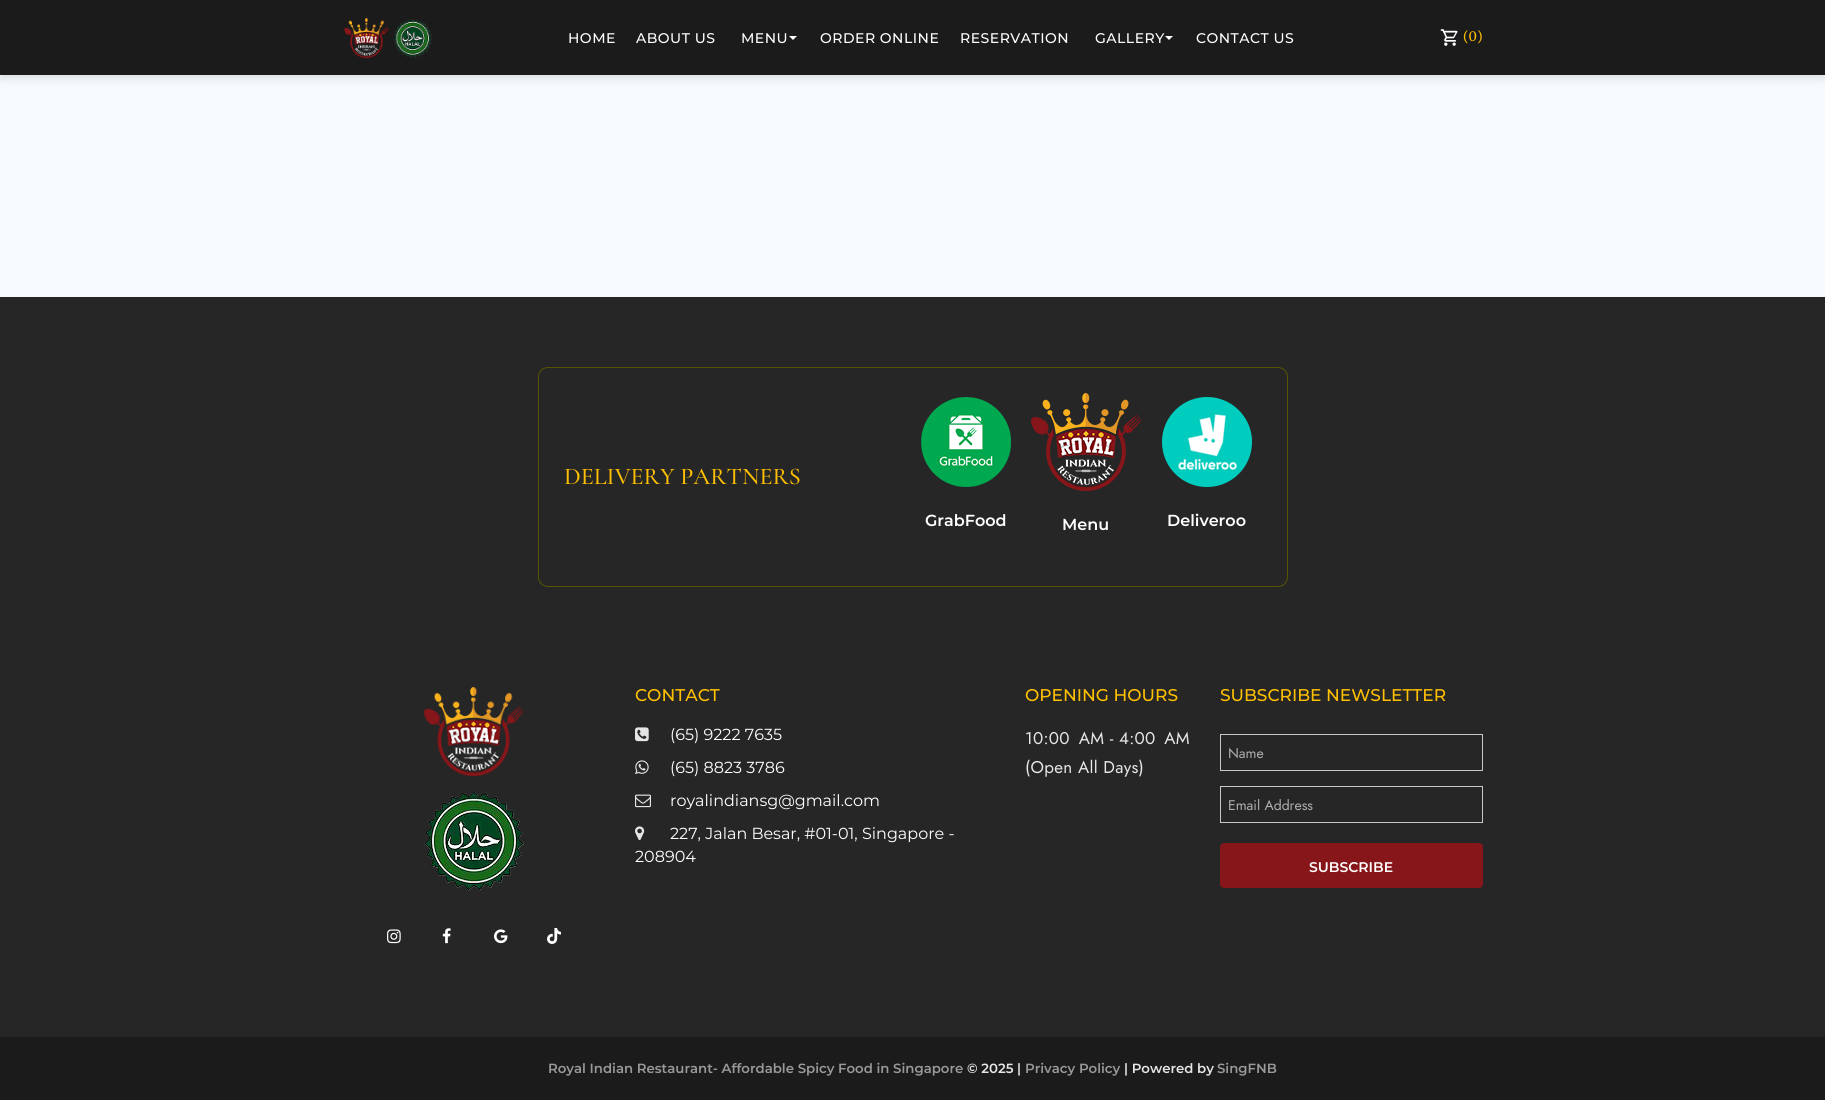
#include <cairo.h>
#include <math.h>
#include <stddef.h>

static cairo_t *c;
static void C(unsigned color){cairo_set_source_rgb(c, (color >> 16) / 255.0, (color >> 8 & 255) / 255.0, (color & 255) / 255.0);}
static void F(const char *family, double size, int italic, int bold){cairo_select_font_face(c, family, italic ? CAIRO_FONT_SLANT_ITALIC : CAIRO_FONT_SLANT_NORMAL,bold ? CAIRO_FONT_WEIGHT_BOLD : CAIRO_FONT_WEIGHT_NORMAL);cairo_set_font_size(c, size);}
static void T(double x, double y, const char *s){cairo_move_to(c, x, y);cairo_show_text(c, s);}
static void L(double x, double y, const char *s, double letter, double word){cairo_move_to(c, x, y);while (*s) {char ch[5] = {0};int n = 0;do ch[n++] = *s++; while ((*s & 0xC0) == 0x80);cairo_show_text(c, ch);cairo_rel_move_to(c, letter + word * (*ch == ' '), 0);}}
static void R(double x, double y, double w, double h){cairo_rectangle(c, x, y, w, h);cairo_fill(c);}
static void Q(double x, double y, double w, double h, double r){cairo_new_sub_path(c);cairo_arc(c, x + w - r, y + h - r, r, 0, M_PI / 2);cairo_arc(c, x + r, y + h - r, r, M_PI / 2, M_PI);cairo_arc(c, x + r, y + r, r, M_PI, 1.5 * M_PI);cairo_arc(c, x + w - r, y + r, r, 1.5 * M_PI, 2 * M_PI);cairo_close_path(c);}
static void S(double x, double y, double w, double h, double r, double blur, double alpha){cairo_push_group_with_content(c, CAIRO_CONTENT_ALPHA);cairo_set_operator(c, CAIRO_OPERATOR_SOURCE);for (int i = 15; i >= -15 && fmin(w, h) + blur * i / 3 > 0; i -= 2) {double e = blur * i / 6;cairo_set_source_rgba(c, 0, 0, 0, alpha * erfc((i - 1) / 8.5) / 2);Q(x - e, y - e, w + 2 * e, h + 2 * e, fmax(0, fmin(r + e + blur * .6, fmin(w, h) / 2 + e)));cairo_fill(c);}cairo_pattern_t *soft = cairo_pop_group(c);cairo_mask(c, soft);cairo_pattern_destroy(soft);}
static void I(const char *path, double x, double y, double w, double h){cairo_surface_t *image = cairo_image_surface_create_from_png(path);cairo_save(c);cairo_set_source_surface(c, image, x, y);cairo_rectangle(c, x, y, w, h);cairo_fill(c);cairo_restore(c);cairo_surface_destroy(image);}
int main(void) {
cairo_surface_t *surface = cairo_image_surface_create(CAIRO_FORMAT_RGB24, 1825, 1100);
c = cairo_create(surface);
cairo_font_options_t *options = cairo_font_options_create();
cairo_font_options_set_hint_metrics(options, CAIRO_HINT_METRICS_OFF);
cairo_font_options_set_hint_style(options, CAIRO_HINT_STYLE_NONE);
cairo_set_font_options(c, options);
cairo_set_miter_limit(c, 4);
C(0xf6fafd);
cairo_paint(c);
C(0x000000);
S(0,4,1825,75,0,4,.1);
C(0x1b1b1b);
R(0,0,1825,75);
I("1.png",344,18,88,40);
F("Montserrat Medium",14,0,0);
C(0xffffff);
L(568,43,"HOME",.5,0);
L(636,43,"ABOUT US",.5,0);
L(741,43,"MENU",.5,0);
I("2.png",789,36,8,4);
L(820,43,"ORDER ONLINE",.5,0);
L(960,43,"RESERVATION",.5,0);
L(1095,43,"GALLERY",.5,0);
I("2.png",1165,36,8,4);
L(1196,43,"CONTACT US",.5,0);
I("3.png",1440,29,18,17);
F("Merriweather",13,0,0);
C(0xffc001);
T(1463,41,"(0)");
C(0x262626);
R(0,297,1825,740);
Q(538.5,367.5,749,219,9.5);
C(0x545402);
cairo_set_line_width(c,1);
cairo_stroke(c);
F("Cormorant Garamond Medium",24,0,0);
C(0xffc001);
T(564,484,"DELIVERY PARTNERS");
I("4.png",921,397,90,90);
F("Montserrat SemiBold",16,0,0);
C(0xffffff);
T(925,526,"GrabFood");
I("5.png",1031,393,111,98);
T(1062,530,"Menu");
I("6.png",1162,397,90,90);
T(1167,526,"Deliveroo");
I("7.png",424,687,100,89);
I("8.png",424,791,100,100);
I("9.png",387,929,14,15);
I("10.png",442,928,9,16);
I("11.png",494,929,14,15);
I("12.png",547,928,14,16);
F("Montserrat Medium",17,0,0);
C(0xffc001);
T(635,701,"CONTACT");
I("13.png",635,727,14,15);
F("Montserrat",16,0,0);
C(0xffffff);
T(670,740,"(65) 9222 7635");
I("14.png",635,760,14,15);
T(670,773,"(65) 8823 3786");
I("15.png",635,794,16,14);
T(670,806,"royalindiansg@gmail.com");
I("16.png",635,826,10,15);
T(670,839,"227, Jalan Besar, #01-01, Singapore -");
T(635,862,"208904");
F("Montserrat Medium",17,0,0);
C(0xffc001);
T(1025,701,"OPENING HOURS");
F("Jost",17,0,0);
C(0xe6e6e6);
L(1025,744,"10:00 AM - 4:00 AM",.3,0);
L(1025,773,"(Open All Days)",.3,0);
F("Montserrat Medium",17,0,0);
C(0xffc001);
T(1220,701,"SUBSCRIBE NEWSLETTER");
cairo_rectangle(c,1220.5,734.5,262,36);
C(0xc8c8c8);
cairo_stroke(c);
F("Jost",14,0,0);
C(0xafafaf);
T(1228,758,"Name");
cairo_rectangle(c,1220.5,786.5,262,36);
C(0xc8c8c8);
cairo_stroke(c);
C(0xafafaf);
T(1228,810,"Email Address");
C(0x861619);
Q(1221,844,261,43,3);
cairo_fill_preserve(c);
cairo_set_line_width(c,2);
cairo_stroke(c);
F("Montserrat SemiBold",14,0,0);
C(0xffffff);
T(1309,872,"SUBSCRIBE");
C(0x1b1b1b);
R(0,1037,1825,63);
F("Montserrat SemiBold",13.3,0,0);
C(0x999999);
T(548,1073,"Royal Indian Restaurant- Affordable Spicy Food in Singapore");
C(0xe6e6e6);
T(967,1073,"© 2025 |");
C(0x999999);
T(1025,1073,"Privacy Policy");
C(0xe6e6e6);
T(1124,1073,"| Powered by");
C(0x999999);
T(1217,1073,"SingFNB");
cairo_surface_write_to_png(surface, "o.png");
cairo_font_options_destroy(options);
cairo_destroy(c);
cairo_surface_destroy(surface);
return 0;
}
